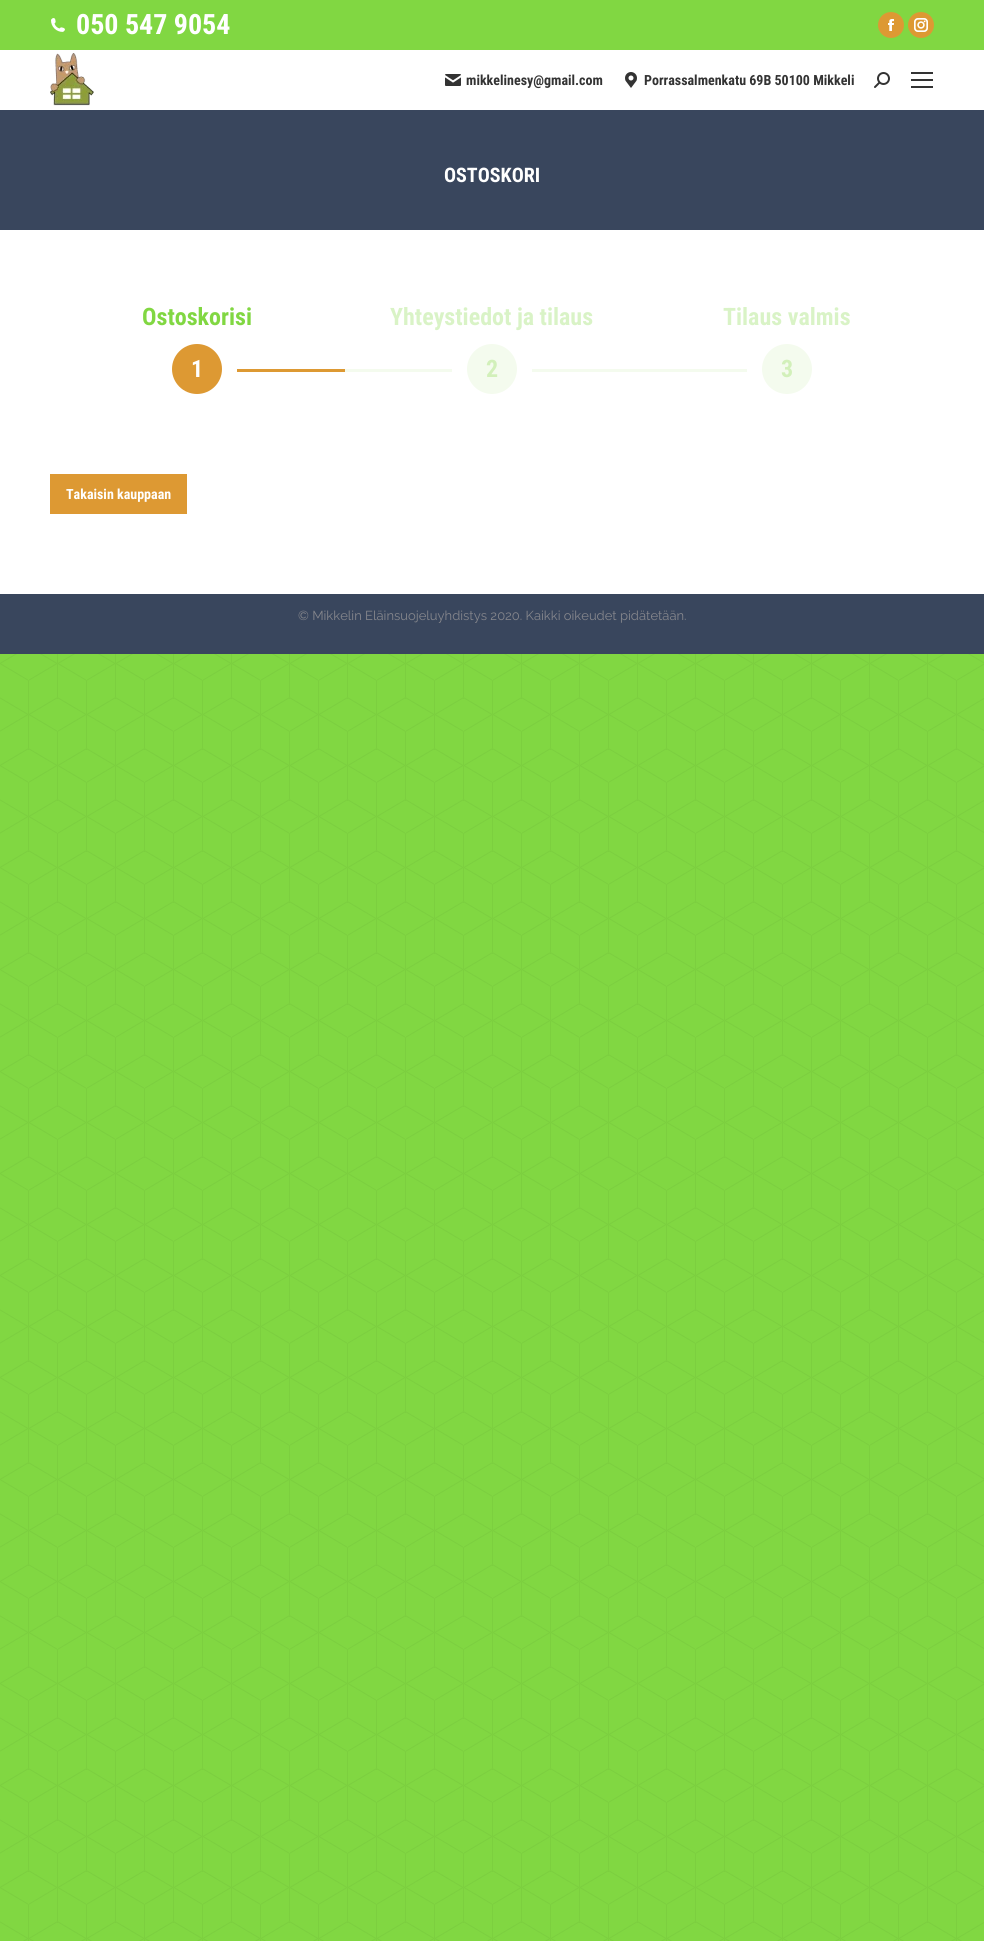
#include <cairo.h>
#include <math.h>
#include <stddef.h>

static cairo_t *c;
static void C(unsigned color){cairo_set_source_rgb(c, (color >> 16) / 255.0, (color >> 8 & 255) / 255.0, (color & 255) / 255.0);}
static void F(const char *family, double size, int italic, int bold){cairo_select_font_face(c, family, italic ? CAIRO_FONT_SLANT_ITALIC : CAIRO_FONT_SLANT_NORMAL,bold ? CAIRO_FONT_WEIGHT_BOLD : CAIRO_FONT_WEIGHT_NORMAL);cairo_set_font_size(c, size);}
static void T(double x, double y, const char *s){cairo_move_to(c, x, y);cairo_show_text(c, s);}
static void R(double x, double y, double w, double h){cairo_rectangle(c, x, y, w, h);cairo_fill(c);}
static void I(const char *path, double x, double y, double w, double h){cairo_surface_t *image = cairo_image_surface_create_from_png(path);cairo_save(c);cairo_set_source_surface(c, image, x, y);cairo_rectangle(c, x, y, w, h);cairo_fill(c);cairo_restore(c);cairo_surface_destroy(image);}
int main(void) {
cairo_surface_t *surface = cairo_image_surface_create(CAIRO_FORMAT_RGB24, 984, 1941);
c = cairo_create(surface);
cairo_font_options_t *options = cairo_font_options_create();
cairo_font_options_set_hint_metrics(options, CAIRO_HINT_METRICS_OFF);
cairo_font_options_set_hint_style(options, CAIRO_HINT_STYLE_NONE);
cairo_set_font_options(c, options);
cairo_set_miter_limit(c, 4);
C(0x81d742);
cairo_paint(c);
I("1.png",0,654,984,1287);
C(0xffffff);
R(0,230,984,364);
R(0,50,984,60);
I("2.png",51,18,14,14);
F("Roboto Condensed",28,0,1);
T(76,34,"050 547 9054");
C(0xdd9933);
cairo_new_path(c);
cairo_arc(c,891,25,13,0,2 * M_PI);
cairo_fill(c);
I("3.png",888,19,6,12);
cairo_arc(c,921,25,13,0,2 * M_PI);
cairo_fill(c);
I("4.png",914,18,14,14);
I("5.png",50,53,44,53);
I("6.png",445,74,16,12);
F("Roboto Condensed",14,0,1);
C(0x333333);
T(466,85,"mikkelinesy@gmail.com");
I("7.png",625,72,12,16);
T(644,85,"Porrassalmenkatu 69B 50100 Mikkeli");
I("8.png",874,72,16,16);
R(911,72,22,2);
R(911,79,22,2);
R(911,86,22,2);
C(0x39465d);
R(0,110,984,120);
F("Roboto Condensed",20,0,1);
C(0xffffff);
T(444,182,"OSTOSKORI");
F("Roboto Condensed",24,0,1);
C(0x81d742);
T(142,325,"Ostoskorisi");
C(0xdd9933);
cairo_new_path(c);
cairo_arc(c,197,369,25,0,2 * M_PI);
cairo_fill(c);
C(0xffffff);
T(191,377,"1");
C(0xdd9933);
R(237,369,108,3);
C(0xd9f3c6);
T(390,325,"Yhteystiedot ja tilaus");
C(0xf4fbee);
R(345,369,107,3);
cairo_new_path(c);
cairo_arc(c,492,369,25,0,2 * M_PI);
cairo_fill(c);
C(0xd2f0ba);
T(486,377,"2");
C(0xf4fbee);
R(532,369,215,3);
C(0xd9f3c6);
T(723,325,"Tilaus valmis");
C(0xf4fbee);
cairo_new_path(c);
cairo_arc(c,787,369,25,0,2 * M_PI);
cairo_fill(c);
C(0xd2f0ba);
T(781,377,"3");
C(0xdd9933);
R(50,474,137,40);
F("Roboto Condensed",14,0,1);
C(0xffffff);
T(66,499,"Takaisin kauppaan");
C(0x39465d);
R(0,594,984,60);
F("Raleway",13,0,0);
C(0x85868c);
T(298,620,"© Mikkelin Eläinsuojeluyhdistys 2020. Kaikki oikeudet pidätetään.");
cairo_surface_write_to_png(surface, "o.png");
cairo_font_options_destroy(options);
cairo_destroy(c);
cairo_surface_destroy(surface);
return 0;
}
